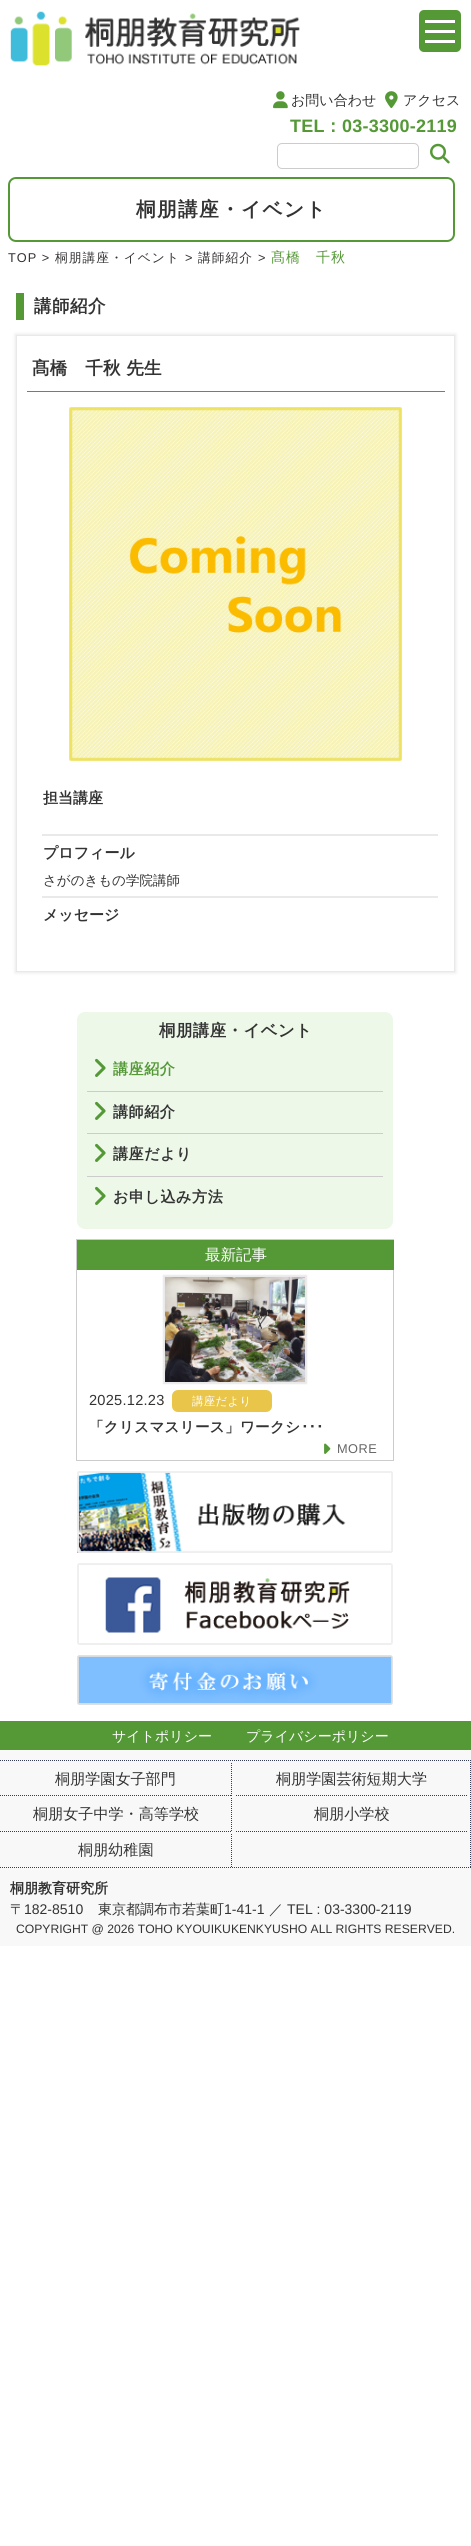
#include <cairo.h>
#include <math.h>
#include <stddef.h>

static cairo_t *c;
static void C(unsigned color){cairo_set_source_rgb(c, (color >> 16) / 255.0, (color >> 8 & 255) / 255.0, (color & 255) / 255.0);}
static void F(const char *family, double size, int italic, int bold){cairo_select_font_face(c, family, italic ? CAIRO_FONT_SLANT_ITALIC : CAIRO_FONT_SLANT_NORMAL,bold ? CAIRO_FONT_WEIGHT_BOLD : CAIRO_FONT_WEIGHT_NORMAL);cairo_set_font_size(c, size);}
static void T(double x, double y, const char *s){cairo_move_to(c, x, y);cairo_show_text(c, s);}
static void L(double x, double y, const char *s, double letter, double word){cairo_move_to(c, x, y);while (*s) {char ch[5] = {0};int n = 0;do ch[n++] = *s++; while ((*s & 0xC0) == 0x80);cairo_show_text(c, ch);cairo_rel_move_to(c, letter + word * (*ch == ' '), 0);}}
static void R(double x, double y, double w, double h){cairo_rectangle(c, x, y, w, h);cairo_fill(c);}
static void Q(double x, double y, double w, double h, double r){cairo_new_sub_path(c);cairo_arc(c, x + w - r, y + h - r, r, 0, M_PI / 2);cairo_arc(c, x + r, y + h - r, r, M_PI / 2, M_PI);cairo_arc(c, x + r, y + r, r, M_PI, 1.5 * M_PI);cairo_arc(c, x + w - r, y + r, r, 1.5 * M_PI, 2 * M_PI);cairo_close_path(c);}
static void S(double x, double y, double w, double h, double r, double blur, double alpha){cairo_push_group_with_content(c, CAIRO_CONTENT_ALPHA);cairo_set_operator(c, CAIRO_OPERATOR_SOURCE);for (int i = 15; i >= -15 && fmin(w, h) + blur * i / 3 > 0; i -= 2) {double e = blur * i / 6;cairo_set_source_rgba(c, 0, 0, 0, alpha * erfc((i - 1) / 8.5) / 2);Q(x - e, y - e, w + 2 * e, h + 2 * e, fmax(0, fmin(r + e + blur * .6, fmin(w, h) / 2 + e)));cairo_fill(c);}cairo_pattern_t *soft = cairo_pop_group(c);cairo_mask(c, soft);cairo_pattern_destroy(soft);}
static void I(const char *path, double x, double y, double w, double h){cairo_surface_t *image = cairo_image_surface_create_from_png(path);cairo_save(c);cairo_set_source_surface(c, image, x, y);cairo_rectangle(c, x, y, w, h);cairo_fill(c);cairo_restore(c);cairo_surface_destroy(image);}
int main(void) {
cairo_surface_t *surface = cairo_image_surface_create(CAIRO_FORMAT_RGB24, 471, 2546);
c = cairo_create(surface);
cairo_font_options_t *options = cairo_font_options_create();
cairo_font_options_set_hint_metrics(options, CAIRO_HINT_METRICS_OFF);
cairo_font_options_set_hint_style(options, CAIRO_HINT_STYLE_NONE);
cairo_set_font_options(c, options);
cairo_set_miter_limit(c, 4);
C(0xffffff);
cairo_paint(c);
C(0x559937);
Q(419,10,42,42,5);
cairo_fill(c);
C(0xffffff);
R(425,20,30,3);
R(425,30,30,3);
R(425,40,30,3);
I("1.png",10,11,290,55);
I("2.png",273,91,15,18);
F("WenQuanYi Zen Hei Medium",14,0,0);
C(0x333333);
T(291,105,"お問い合わせ");
I("3.png",385,91,13,18);
T(403,105,"アクセス");
F("Liberation Sans",18,0,1);
C(0x559937);
L(290,132,"TEL",.25,0);
F("WenQuanYi Zen Hei",18,0,1);
L(324,132,"：",.25,0);
F("Liberation Sans",18,0,1);
L(342,132,"03-3300-2119",.25,0);
Q(277.5,143.5,141,25,4.5);
C(0xcccccc);
cairo_set_line_width(c,1);
cairo_stroke(c);
I("4.png",430,143,20,21);
Q(9,178,445,63,7);
C(0x559937);
cairo_set_line_width(c,2);
cairo_stroke(c);
F("WenQuanYi Zen Hei",19.75,0,1);
C(0x333333);
L(136,216,"桐朋講座・イベント",1.25,0);
F("Liberation Sans",12.75,0,0);
L(8,262,"TOP >",1,0);
F("WenQuanYi Zen Hei Medium",12.75,0,0);
L(55,262,"桐朋講座・イベント",1,0);
F("Liberation Sans",12.75,0,0);
L(185,262,">",1,0);
F("WenQuanYi Zen Hei Medium",12.75,0,0);
L(198,262,"講師紹介",1,0);
F("Liberation Sans",12.75,0,0);
L(258,262,">",1,0);
F("WenQuanYi Zen Hei Medium",14,0,0);
C(0x559937);
L(271,262,"髙橋　千秋",1,0);
R(16,293,8,27);
F("WenQuanYi Zen Hei",17.5,0,1);
C(0x333333);
L(34,312,"講師紹介",.5,0);
cairo_save(c);
cairo_set_fill_rule(c,CAIRO_FILL_RULE_EVEN_ODD);
cairo_new_path(c);
cairo_move_to(c,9,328);
cairo_line_to(c,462,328);
cairo_line_to(c,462,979);
cairo_line_to(c,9,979);
cairo_close_path(c);
cairo_move_to(c,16,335);
cairo_line_to(c,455,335);
cairo_line_to(c,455,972);
cairo_line_to(c,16,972);
cairo_close_path(c);
cairo_clip(c);
C(0xe9e9e9);
S(15,334,441,639,0,1.5,1);
cairo_restore(c);
cairo_rectangle(c,16.5,335.5,438,636);
C(0xe9e9e9);
cairo_set_line_width(c,1);
cairo_stroke(c);
C(0x559937);
R(27,391,418,1);
C(0x333333);
L(32,374,"髙橋　千秋 先生",.25,0);
I("5.png",69,407,333,354);
F("WenQuanYi Zen Hei",15,0,1);
T(43,803,"担当講座");
C(0xe9e9e9);
R(42,834,396,2);
C(0x333333);
T(43,858,"プロフィール");
F("WenQuanYi Zen Hei Medium",13.5,0,0);
T(43,885,"さがのきもの学院講師");
C(0xe9e9e9);
R(42,896,396,2);
F("WenQuanYi Zen Hei",15,0,1);
C(0x333333);
T(43,920,"メッセージ");
C(0xedf8e9);
Q(77,1012,316,217,8);
cairo_fill(c);
F("WenQuanYi Zen Hei",16.4,0,1);
C(0x333333);
L(159,1036,"桐朋講座・イベント",.5,0);
I("6.png",95,1058,11,19);
F("WenQuanYi Zen Hei",15.1,0,1);
C(0x559937);
L(113,1074,"講座紹介",.5,0);
C(0xcccccc);
R(87,1091,296,1);
I("6.png",95,1101,11,19);
C(0x333333);
L(113,1117,"講師紹介",.5,0);
C(0xcccccc);
R(87,1133,296,1);
I("6.png",95,1143,11,19);
C(0x333333);
L(113,1159,"講座だより",.5,0);
C(0xcccccc);
R(87,1176,296,1);
I("6.png",95,1186,11,19);
C(0x333333);
L(113,1202,"お申し込み方法",.5,0);
cairo_rectangle(c,76.5,1239.5,317,221);
C(0xcccccc);
cairo_stroke(c);
C(0x559937);
R(77,1240,317,30);
F("WenQuanYi Zen Hei Medium",15.5,0,0);
C(0xffffff);
T(205,1260,"最新記事");
C(0xe9e9e9);
S(163,1275,144,109,0,.5,1);
I("7.png",165,1277,140,105);
F("Liberation Sans",14.6,0,0);
C(0x333333);
L(89,1405,"2025.12.23",.25,0);
C(0xe9c549);
Q(172,1390,100,22,6);
cairo_fill(c);
F("WenQuanYi Zen Hei Medium",11.5,0,0);
C(0xffffff);
L(192,1405,"講座だより",.25,0);
F("WenQuanYi Zen Hei",14.6,0,1);
C(0x333333);
L(89,1432,"「クリスマスリース」ワークシ",.25,0);
F("IPAPGothic",14.6,0,1);
L(301,1432,"･･･",.25,0);
I("8.png",324,1443,7,11);
F("Liberation Sans",12.75,0,0);
C(0x666666);
L(337,1453,"MORE",.5,0);
I("9.png",77,1471,316,82);
I("10.png",77,1563,316,82);
I("11.png",77,1655,316,50);
C(0x559937);
R(0,1721,471,29);
F("WenQuanYi Zen Hei Medium",14,0,0);
C(0xffffff);
T(112,1741,"サイトポリシー");
T(246,1741,"プライバシーポリシー");
C(0xf8f8f8);
R(0,1750,471,196);
cairo_new_path(c);
cairo_move_to(c,0,1760.5);
cairo_line_to(c,471,1760.5);
C(0x343d55);
cairo_set_dash(c,(double[]){1,1},2,0);
cairo_stroke(c);
cairo_new_path(c);
cairo_move_to(c,470.5,1760);
cairo_line_to(c,470.5,1868);
cairo_stroke(c);
cairo_new_path(c);
cairo_move_to(c,0,1867.5);
cairo_line_to(c,471,1867.5);
cairo_stroke(c);
cairo_new_path(c);
cairo_move_to(c,231.5,1763);
cairo_line_to(c,231.5,1796);
cairo_stroke(c);
cairo_new_path(c);
cairo_move_to(c,0,1795.5);
cairo_line_to(c,232,1795.5);
cairo_stroke(c);
F("WenQuanYi Zen Hei Medium",15.1,0,0);
C(0x333333);
T(55,1784,"桐朋学園女子部門");
cairo_new_path(c);
cairo_move_to(c,236,1795.5);
cairo_line_to(c,467,1795.5);
C(0x343d55);
cairo_stroke(c);
C(0x333333);
T(276,1784,"桐朋学園芸術短期大学");
cairo_new_path(c);
cairo_move_to(c,231.5,1798);
cairo_line_to(c,231.5,1832);
C(0x343d55);
cairo_stroke(c);
cairo_new_path(c);
cairo_move_to(c,0,1831.5);
cairo_line_to(c,232,1831.5);
cairo_stroke(c);
C(0x333333);
T(33,1819,"桐朋女子中学・高等学校");
cairo_new_path(c);
cairo_move_to(c,236,1831.5);
cairo_line_to(c,467,1831.5);
C(0x343d55);
cairo_stroke(c);
C(0x333333);
T(314,1819,"桐朋小学校");
cairo_new_path(c);
cairo_move_to(c,231.5,1834);
cairo_line_to(c,231.5,1867);
C(0x343d55);
cairo_stroke(c);
C(0x333333);
T(78,1855,"桐朋幼稚園");
F("WenQuanYi Zen Hei",14,0,1);
T(10,1893,"桐朋教育研究所");
F("WenQuanYi Zen Hei Medium",14,0,0);
T(10,1914,"〒");
F("Liberation Sans",14,0,0);
T(24,1914,"182-8510");
F("WenQuanYi Zen Hei Medium",14,0,0);
T(98,1914,"東京都調布市若葉町");
F("Liberation Sans",14,0,0);
T(224,1914,"1-41-1");
F("WenQuanYi Zen Hei Medium",14,0,0);
T(269,1914,"／");
F("Liberation Sans",14,0,0);
T(287,1914,"TEL : 03-3300-2119");
F("Liberation Sans",12.15,0,0);
T(16,1933,"COPYRIGHT @ 2026 TOHO KYOUIKUKENKYUSHO ALL RIGHTS RESERVED.");
cairo_surface_write_to_png(surface, "o.png");
cairo_font_options_destroy(options);
cairo_destroy(c);
cairo_surface_destroy(surface);
return 0;
}
